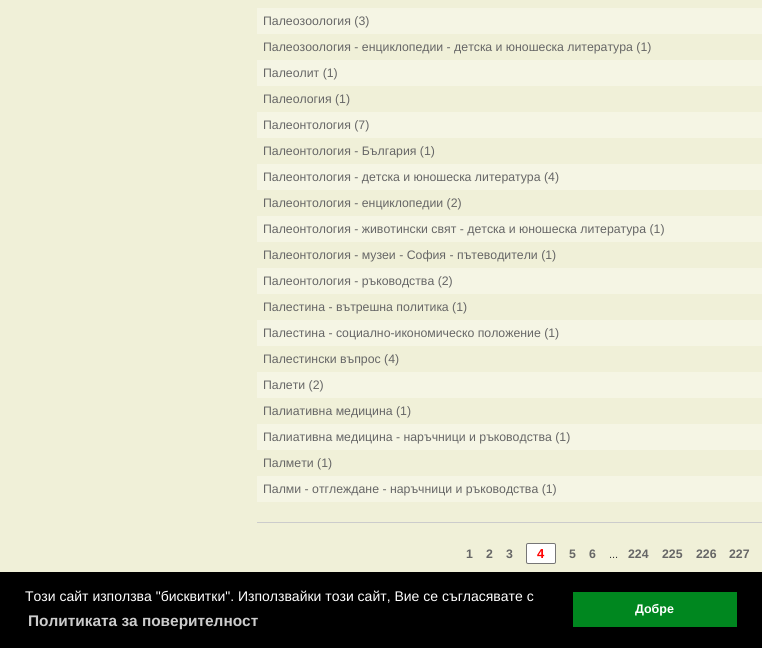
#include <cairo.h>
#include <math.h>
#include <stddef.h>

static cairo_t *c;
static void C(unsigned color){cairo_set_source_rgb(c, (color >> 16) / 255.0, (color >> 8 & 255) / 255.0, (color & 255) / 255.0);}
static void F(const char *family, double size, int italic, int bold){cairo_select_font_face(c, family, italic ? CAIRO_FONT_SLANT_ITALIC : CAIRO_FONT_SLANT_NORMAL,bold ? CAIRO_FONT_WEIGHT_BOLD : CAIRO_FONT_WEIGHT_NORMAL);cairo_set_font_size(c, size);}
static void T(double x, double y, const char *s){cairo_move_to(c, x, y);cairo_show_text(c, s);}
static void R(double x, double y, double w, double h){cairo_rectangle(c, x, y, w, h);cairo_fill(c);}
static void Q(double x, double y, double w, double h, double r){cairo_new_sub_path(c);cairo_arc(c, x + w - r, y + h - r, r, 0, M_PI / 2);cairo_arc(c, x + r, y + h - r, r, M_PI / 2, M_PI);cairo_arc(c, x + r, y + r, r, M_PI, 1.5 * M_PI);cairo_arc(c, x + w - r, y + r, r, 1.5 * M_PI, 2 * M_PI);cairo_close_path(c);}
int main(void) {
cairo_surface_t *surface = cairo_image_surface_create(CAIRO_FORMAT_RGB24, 762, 648);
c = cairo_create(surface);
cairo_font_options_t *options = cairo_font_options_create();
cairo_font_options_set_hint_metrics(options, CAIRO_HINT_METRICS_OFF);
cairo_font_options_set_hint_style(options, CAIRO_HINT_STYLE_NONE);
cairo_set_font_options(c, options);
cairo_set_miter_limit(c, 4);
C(0xf0f0d8);
cairo_paint(c);
C(0xcccccc);
R(257,522,505,1);
C(0xf5f5e4);
R(257,8,505,26);
F("Liberation Sans",12.3,0,0);
C(0x666666);
T(263,25,"Палеозоология (3)");
T(263,51,"Палеозоология - енциклопедии - детска и юношеска литература (1)");
C(0xf5f5e4);
R(257,60,505,26);
C(0x666666);
T(263,77,"Палеолит (1)");
T(263,103,"Палеология (1)");
C(0xf5f5e4);
R(257,112,505,26);
C(0x666666);
T(263,129,"Палеонтология (7)");
T(263,155,"Палеонтология - България (1)");
C(0xf5f5e4);
R(257,164,505,26);
C(0x666666);
T(263,181,"Палеонтология - детска и юношеска литература (4)");
T(263,207,"Палеонтология - енциклопедии (2)");
C(0xf5f5e4);
R(257,216,505,26);
C(0x666666);
T(263,233,"Палеонтология - животински свят - детска и юношеска литература (1)");
T(263,259,"Палеонтология - музеи - София - пътеводители (1)");
C(0xf5f5e4);
R(257,268,505,26);
C(0x666666);
T(263,285,"Палеонтология - ръководства (2)");
T(263,311,"Палестина - вътрешна политика (1)");
C(0xf5f5e4);
R(257,320,505,26);
C(0x666666);
T(263,337,"Палестина - социално-икономическо положение (1)");
T(263,363,"Палестински въпрос (4)");
C(0xf5f5e4);
R(257,372,505,26);
C(0x666666);
T(263,389,"Палети (2)");
T(263,415,"Палиативна медицина (1)");
C(0xf5f5e4);
R(257,424,505,26);
C(0x666666);
T(263,441,"Палиативна медицина - наръчници и ръководства (1)");
T(263,467,"Палмети (1)");
C(0xf5f5e4);
R(257,476,505,26);
C(0x666666);
T(263,493,"Палми - отглеждане - наръчници и ръководства (1)");
F("Liberation Sans",12.3,0,1);
T(466,558,"1");
T(486,558,"2");
T(506,558,"3");
C(0xffffff);
Q(526.5,543.5,29,20,1.5);
cairo_fill_preserve(c);
C(0x767676);
cairo_set_line_width(c,1);
cairo_stroke(c);
F("Liberation Sans",13,0,1);
C(0xff0000);
T(537,558,"4");
F("Liberation Sans",12.3,0,1);
C(0x666666);
T(569,558,"5");
T(589,558,"6");
F("Liberation Sans",11,0,0);
C(0x333333);
T(609,558,"...");
F("Liberation Sans",12.3,0,1);
C(0x666666);
T(628,558,"224");
T(662,558,"225");
T(696,558,"226");
T(729,558,"227");
C(0x000000);
R(0,572,762,76);
F("Liberation Sans",14,0,0);
C(0xffffff);
T(25,601,"Този сайт използва \"бисквитки\". Използвайки този сайт, Вие се съгласявате с");
F("Liberation Sans",15.4,0,1);
C(0xcccccc);
T(28,626,"Политиката за поверителност");
C(0x00871f);
R(573,592,164,35);
F("Liberation Sans",12.5,0,1);
C(0xffffff);
T(635,613,"Добре");
cairo_surface_write_to_png(surface, "o.png");
cairo_font_options_destroy(options);
cairo_destroy(c);
cairo_surface_destroy(surface);
return 0;
}
